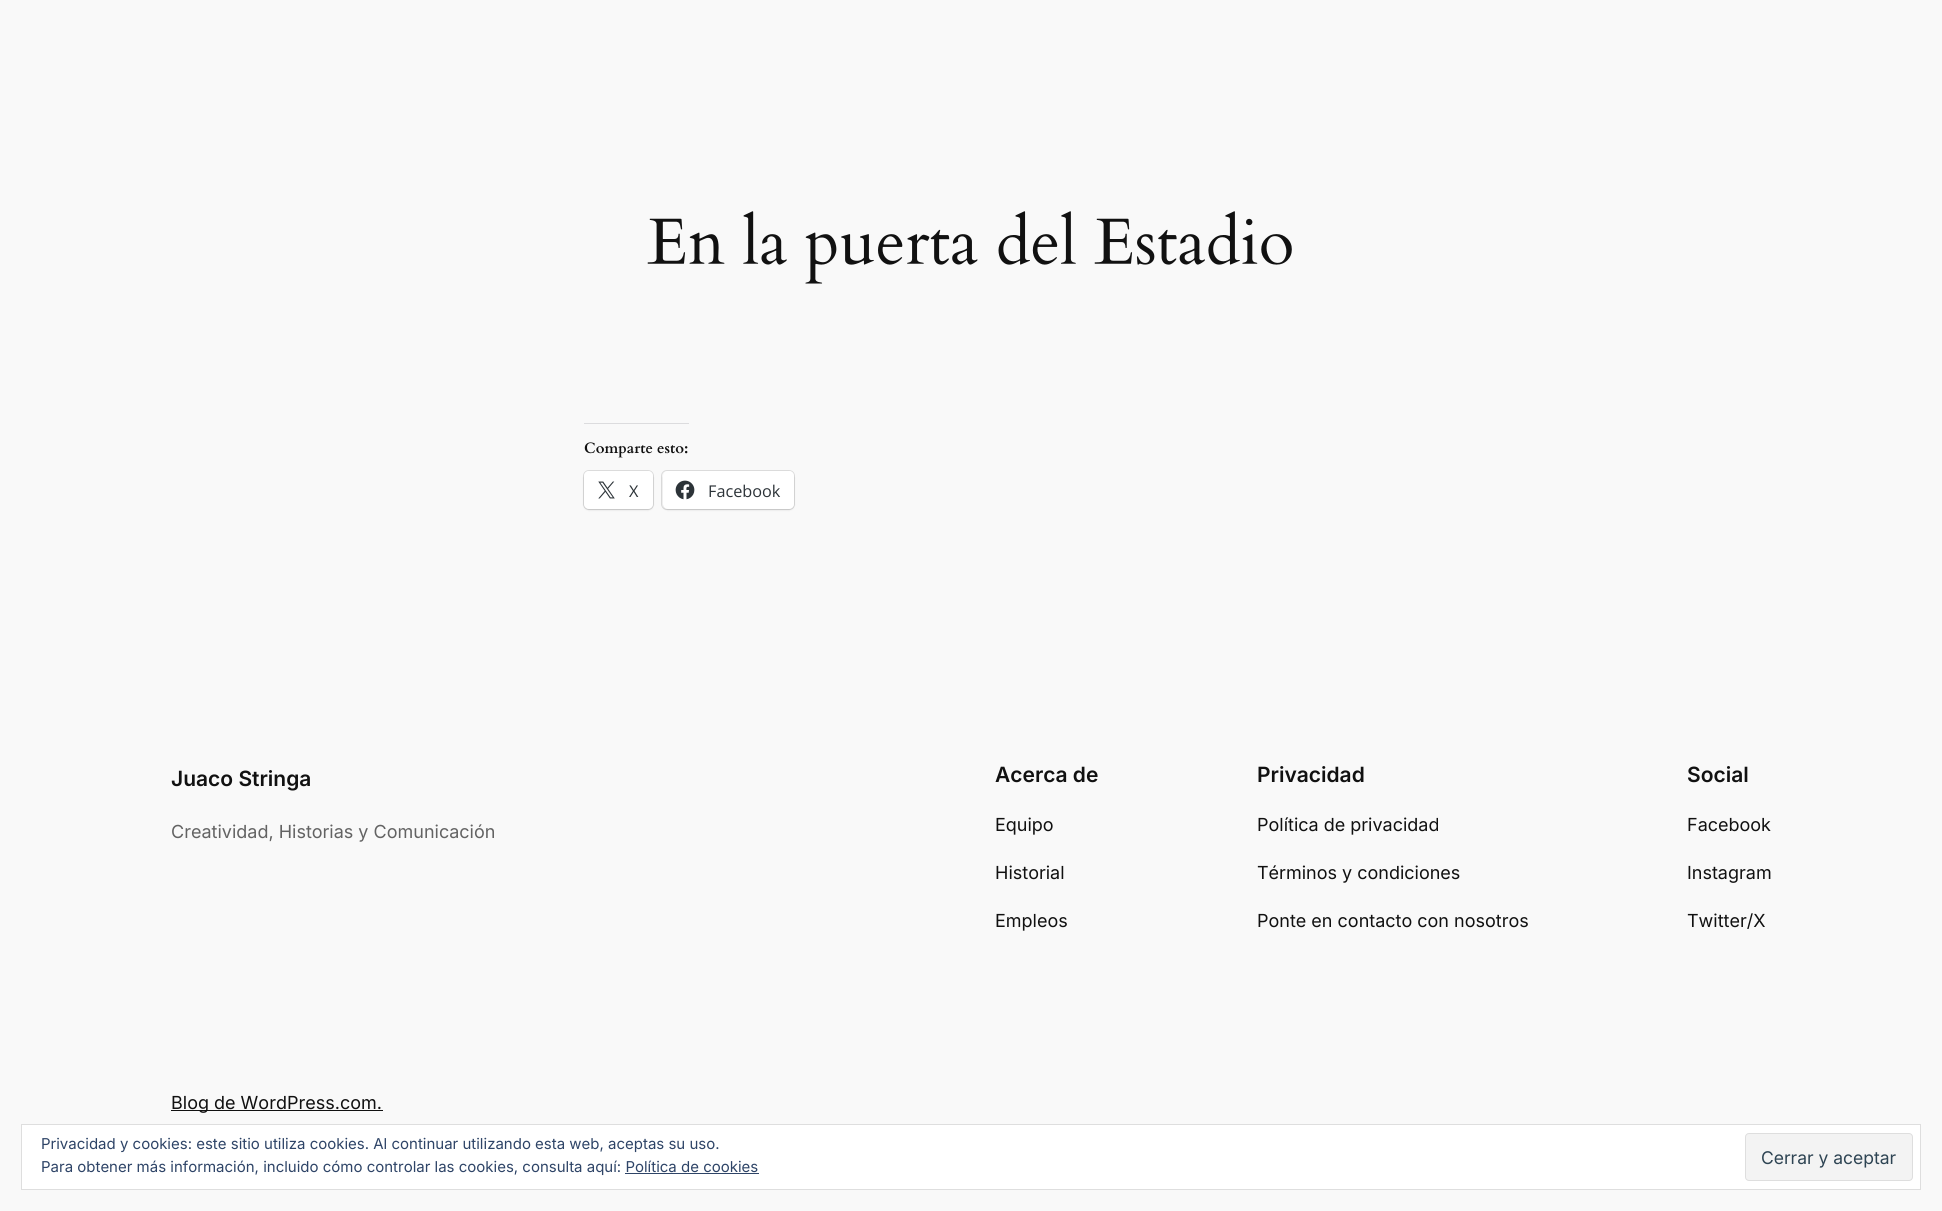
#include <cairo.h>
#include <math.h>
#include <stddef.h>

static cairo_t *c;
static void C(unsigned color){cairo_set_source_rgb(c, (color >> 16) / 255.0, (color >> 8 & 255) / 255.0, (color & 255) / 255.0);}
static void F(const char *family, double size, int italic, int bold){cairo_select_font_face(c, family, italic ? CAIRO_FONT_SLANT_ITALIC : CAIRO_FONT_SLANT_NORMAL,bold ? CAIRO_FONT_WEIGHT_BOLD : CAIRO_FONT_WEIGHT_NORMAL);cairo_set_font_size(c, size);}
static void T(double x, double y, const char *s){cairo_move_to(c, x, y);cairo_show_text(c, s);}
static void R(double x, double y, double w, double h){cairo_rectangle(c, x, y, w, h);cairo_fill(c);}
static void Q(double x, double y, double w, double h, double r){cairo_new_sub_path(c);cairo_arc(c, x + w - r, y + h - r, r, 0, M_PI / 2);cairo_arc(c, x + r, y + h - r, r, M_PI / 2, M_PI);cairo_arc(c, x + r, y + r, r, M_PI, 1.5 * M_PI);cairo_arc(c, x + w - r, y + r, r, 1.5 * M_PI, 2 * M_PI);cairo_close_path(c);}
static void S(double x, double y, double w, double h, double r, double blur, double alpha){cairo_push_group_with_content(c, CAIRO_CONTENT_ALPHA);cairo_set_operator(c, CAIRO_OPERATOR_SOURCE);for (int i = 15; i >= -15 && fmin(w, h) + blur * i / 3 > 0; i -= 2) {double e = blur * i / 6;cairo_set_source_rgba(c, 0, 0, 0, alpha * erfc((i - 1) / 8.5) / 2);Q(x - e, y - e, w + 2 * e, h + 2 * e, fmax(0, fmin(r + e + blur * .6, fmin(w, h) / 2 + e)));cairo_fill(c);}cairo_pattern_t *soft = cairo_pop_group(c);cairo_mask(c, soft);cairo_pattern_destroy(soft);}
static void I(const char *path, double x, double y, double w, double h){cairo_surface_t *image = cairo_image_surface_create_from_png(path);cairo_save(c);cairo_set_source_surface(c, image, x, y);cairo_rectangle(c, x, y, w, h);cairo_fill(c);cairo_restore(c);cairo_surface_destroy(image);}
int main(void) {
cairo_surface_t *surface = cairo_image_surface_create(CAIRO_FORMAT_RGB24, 1942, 1211);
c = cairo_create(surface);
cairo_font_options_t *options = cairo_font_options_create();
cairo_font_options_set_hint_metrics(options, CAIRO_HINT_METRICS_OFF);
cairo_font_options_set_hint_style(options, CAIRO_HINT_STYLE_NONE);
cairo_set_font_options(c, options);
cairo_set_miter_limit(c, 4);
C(0xf9f9f9);
cairo_paint(c);
I("1.png",647,211,645,73);
C(0xdcdcde);
R(584,423,105,1);
F("Cardo",15,0,1);
C(0x111111);
T(584,453,"Comparte esto:");
Q(583.5,470.5,70,39,5.5);
C(0xdbdbdb);
cairo_set_line_width(c,1);
cairo_stroke(c);
C(0x000000);
S(584,473,69,37,5,1,.12);
C(0xffffff);
Q(584,471,69,38,5);
cairo_fill(c);
I("2.png",598,481,17,18);
F("Open Sans",16.25,0,0);
C(0x2c3338);
T(629,497,"X");
Q(661.5,470.5,133,39,5.5);
C(0xdbdbdb);
cairo_stroke(c);
C(0x000000);
S(663,473,131,37,5,1,.12);
C(0xffffff);
Q(663,471,131,38,5);
cairo_fill(c);
I("3.png",675,480,20,20);
C(0x2c3338);
T(708,497,"Facebook");
F("Inter SemiBold",21,0,0);
C(0x111111);
T(171,786,"Juaco Stringa");
F("Inter",18,0,0);
C(0x636363);
T(171,838,"Creatividad, Historias y Comunicación");
F("Inter SemiBold",21,0,0);
C(0x111111);
T(995,782,"Acerca de");
F("Inter",18,0,0);
T(995,831,"Equipo");
T(995,879,"Historial");
T(995,927,"Empleos");
F("Inter SemiBold",21,0,0);
T(1257,782,"Privacidad");
F("Inter",18,0,0);
T(1257,831,"Política de privacidad");
T(1257,879,"Términos y condiciones");
T(1257,927,"Ponte en contacto con nosotros");
F("Inter SemiBold",21,0,0);
T(1687,782,"Social");
F("Inter",18,0,0);
T(1687,831,"Facebook");
T(1687,879,"Instagram");
T(1687,927,"Twitter/X");
R(171,1110,212,1);
T(171,1109,"Blog de WordPress.com.");
C(0xffffff);
cairo_rectangle(c,21.5,1124.5,1899,65);
cairo_fill_preserve(c);
C(0xdedede);
cairo_stroke(c);
F("Inter",15,0,0);
C(0x2e4467);
T(41,1149,"Privacidad y cookies: este sitio utiliza cookies. Al continuar utilizando esta web, aceptas su uso.");
T(41,1172,"Para obtener más información, incluido cómo controlar las cookies, consulta aquí: Política de cookies");
C(0xf3f3f3);
Q(1745.5,1133.5,167,47,3.5);
cairo_fill_preserve(c);
C(0xdedede);
cairo_stroke(c);
F("Inter",17.5,0,0);
C(0x2e4453);
T(1761,1164,"Cerrar y aceptar");
C(0x2e4467);
R(625,1173,134,1);
cairo_surface_write_to_png(surface, "o.png");
cairo_font_options_destroy(options);
cairo_destroy(c);
cairo_surface_destroy(surface);
return 0;
}
